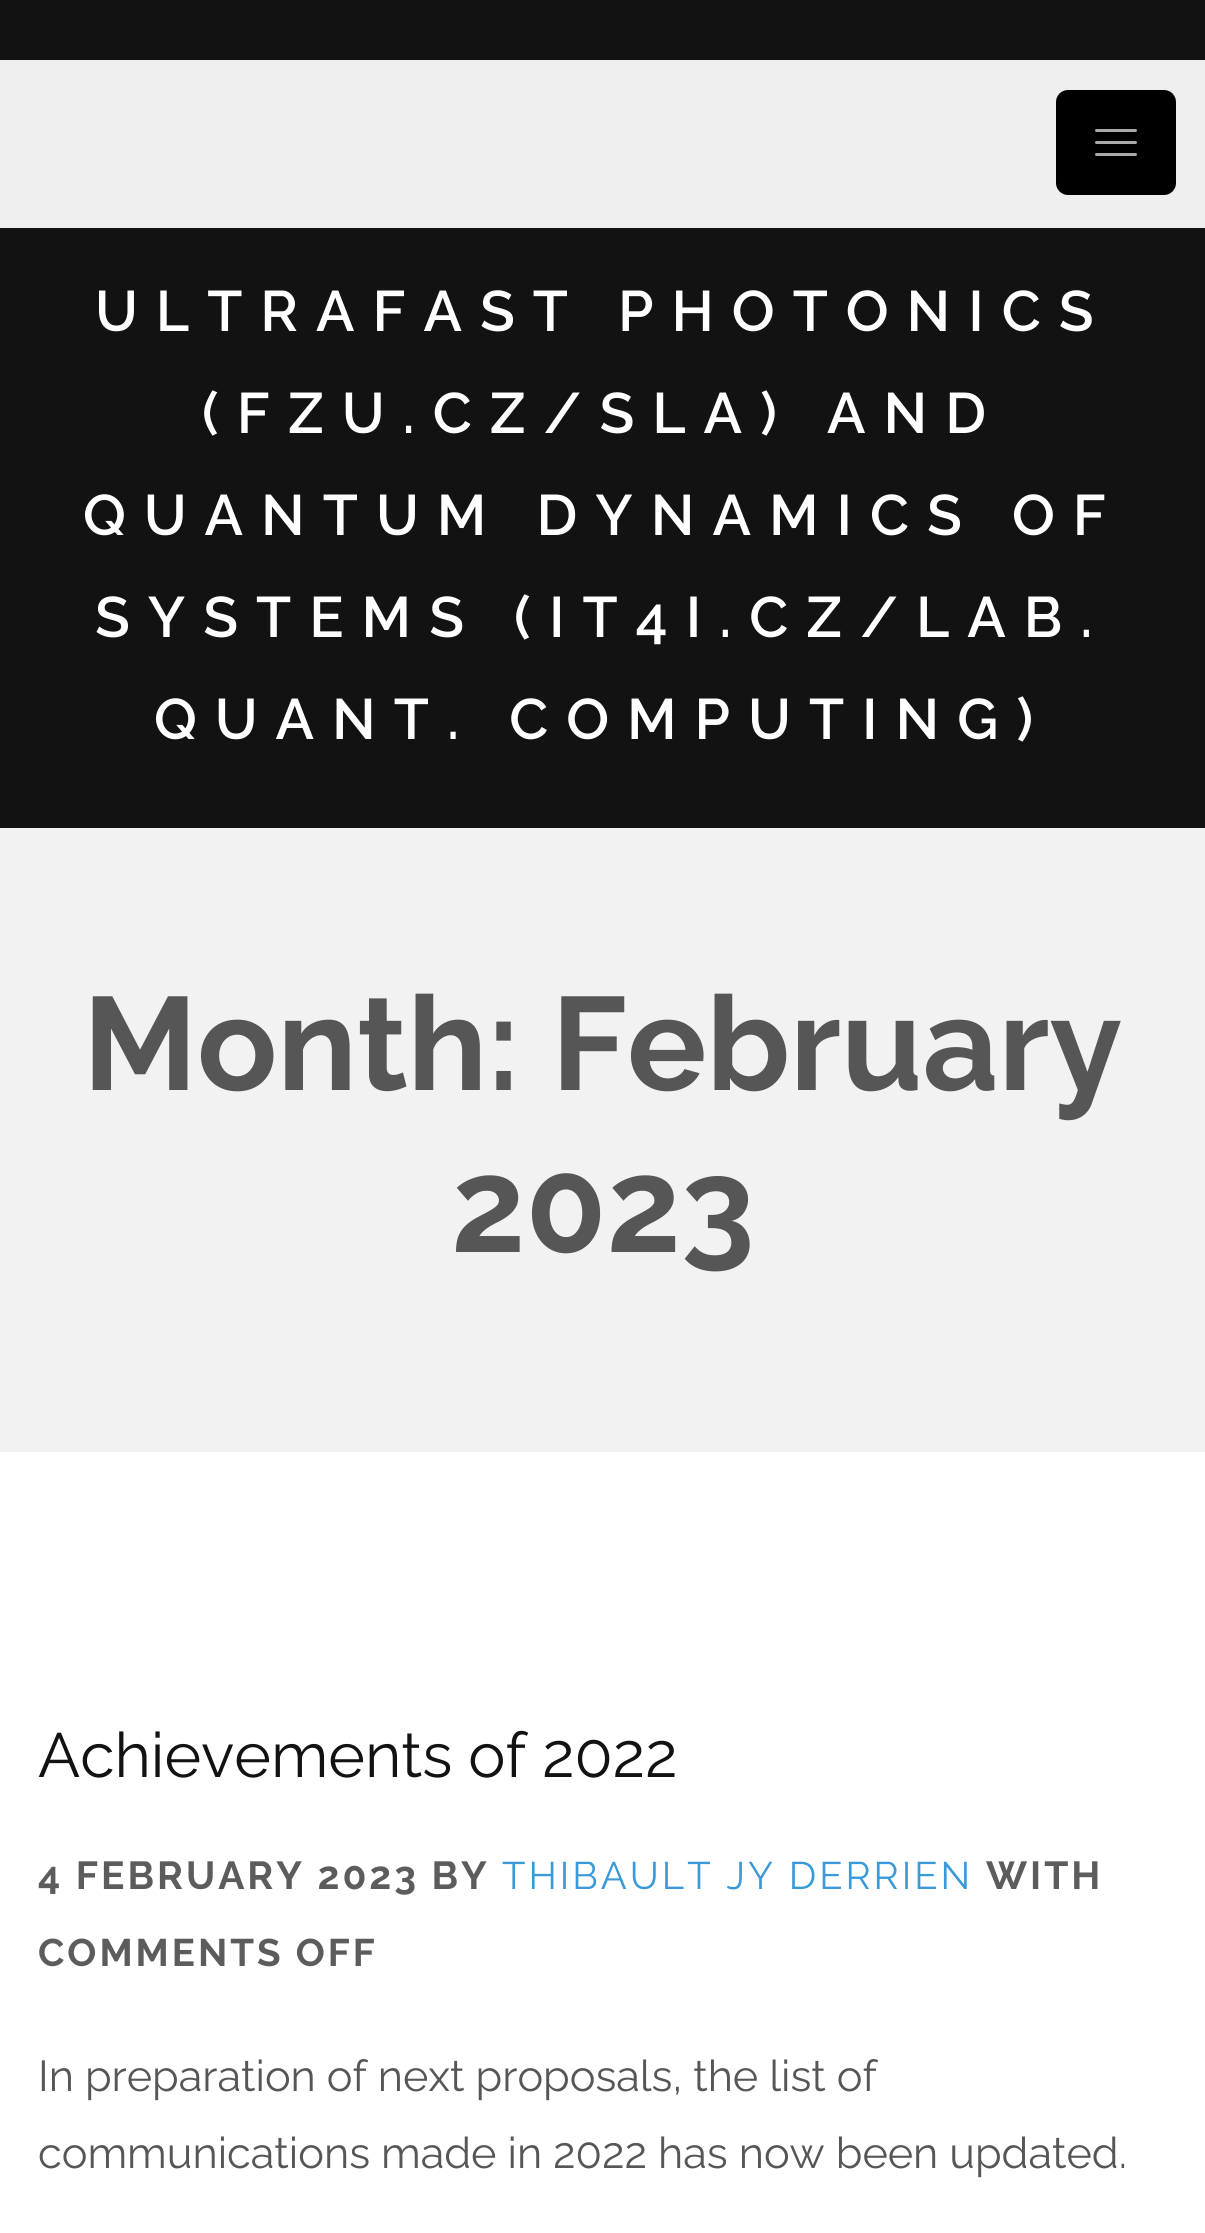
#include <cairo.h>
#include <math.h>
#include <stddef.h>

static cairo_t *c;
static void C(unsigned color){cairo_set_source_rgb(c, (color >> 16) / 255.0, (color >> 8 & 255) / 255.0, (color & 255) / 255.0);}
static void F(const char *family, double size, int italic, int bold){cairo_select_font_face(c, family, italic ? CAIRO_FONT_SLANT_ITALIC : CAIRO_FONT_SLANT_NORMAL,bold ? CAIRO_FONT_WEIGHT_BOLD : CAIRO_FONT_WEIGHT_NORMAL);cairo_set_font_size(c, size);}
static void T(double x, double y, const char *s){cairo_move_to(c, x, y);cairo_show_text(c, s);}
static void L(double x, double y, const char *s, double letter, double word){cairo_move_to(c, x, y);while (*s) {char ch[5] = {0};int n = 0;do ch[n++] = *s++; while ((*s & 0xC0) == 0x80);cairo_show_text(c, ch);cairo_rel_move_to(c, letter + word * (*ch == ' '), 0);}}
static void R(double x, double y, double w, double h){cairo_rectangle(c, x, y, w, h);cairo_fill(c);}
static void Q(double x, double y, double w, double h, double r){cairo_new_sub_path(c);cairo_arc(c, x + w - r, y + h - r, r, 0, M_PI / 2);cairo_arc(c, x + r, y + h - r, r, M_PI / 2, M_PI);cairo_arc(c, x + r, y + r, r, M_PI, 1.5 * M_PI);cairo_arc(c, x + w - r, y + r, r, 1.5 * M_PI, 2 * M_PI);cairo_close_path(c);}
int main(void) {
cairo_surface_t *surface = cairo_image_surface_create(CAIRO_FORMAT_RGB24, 1205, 2233);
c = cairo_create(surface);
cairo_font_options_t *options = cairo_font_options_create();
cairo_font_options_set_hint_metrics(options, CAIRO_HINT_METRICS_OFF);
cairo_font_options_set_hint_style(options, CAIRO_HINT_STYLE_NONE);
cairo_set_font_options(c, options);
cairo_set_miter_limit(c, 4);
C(0xffffff);
cairo_paint(c);
C(0x121212);
R(0,0,1205,828);
C(0xefefef);
R(0,60,1205,168);
C(0x000000);
Q(1056,90,120,105,12);
cairo_fill(c);
C(0xaaaaaa);
Q(1095,129,42,3,1.5);
cairo_fill(c);
Q(1095,141,42,3,1.5);
cairo_fill(c);
Q(1095,153,42,3,1.5);
cairo_fill(c);
F("Raleway SemiBold",57,0,0);
C(0xffffff);
L(95,331,"ULTRAFAST PHOTONICS",18,0);
L(202,433,"(FZU.CZ/SLA) AND",18,0);
L(83,535,"QUANTUM DYNAMICS OF",18,0);
L(95,637,"SYSTEMS (IT4I.CZ/LAB.",18,0);
L(154,739,"QUANT. COMPUTING)",18,0);
C(0xf2f2f2);
R(0,828,1205,624);
F("Raleway",132,0,1);
C(0x565656);
T(83,1090,"Month: February");
T(451,1252,"2023");
F("Raleway",62.4,0,0);
C(0x121212);
T(38,1777,"Achievements of 2022");
F("Raleway",39,0,1);
C(0x5c5c5c);
L(38,1889,"4 FEBRUARY 2023 BY",3,0);
F("Raleway",38.4,0,0);
C(0x3a9ad9);
L(502,1889,"THIBAULT JY DERRIEN",3,0);
F("Raleway",39,0,1);
C(0x5c5c5c);
L(986,1889,"WITH",3,0);
F("Raleway",38.4,0,1);
L(38,1966,"COMMENTS OFF",3,0);
F("Raleway",43.2,0,0);
C(0x565656);
T(38,2091,"In preparation of next proposals, the list of");
T(38,2168,"communications made in 2022 has now been updated.");
cairo_surface_write_to_png(surface, "o.png");
cairo_font_options_destroy(options);
cairo_destroy(c);
cairo_surface_destroy(surface);
return 0;
}
